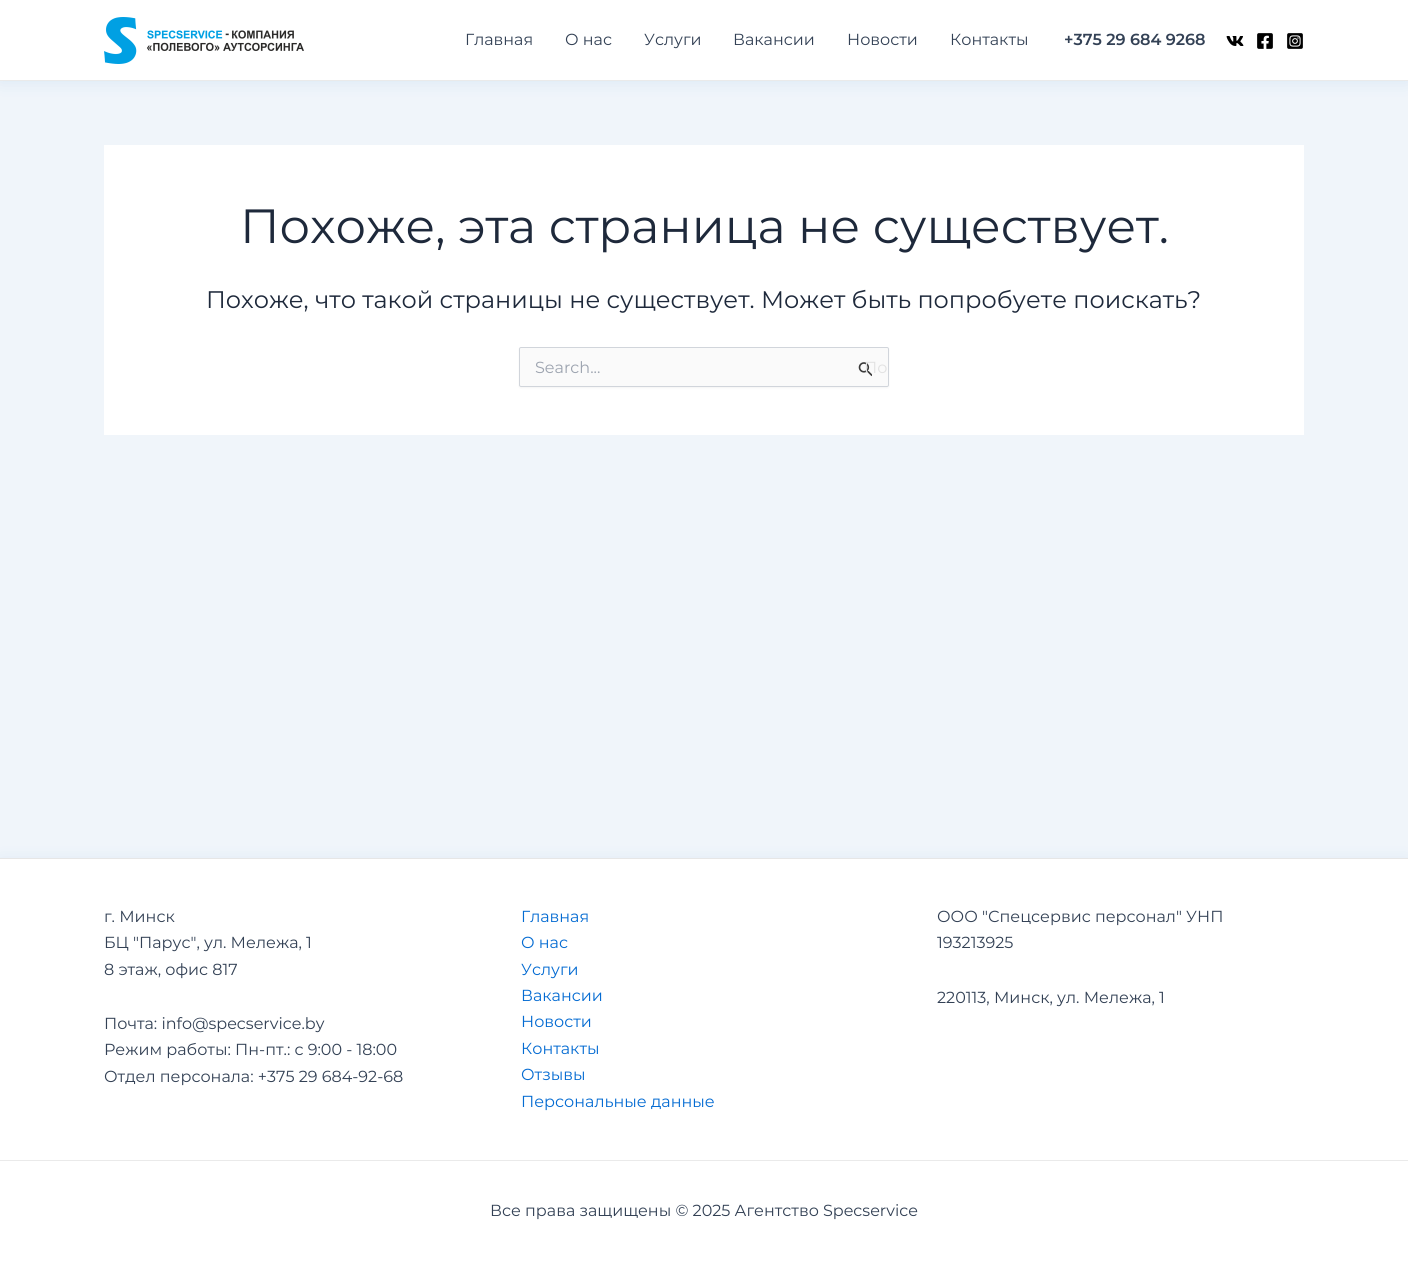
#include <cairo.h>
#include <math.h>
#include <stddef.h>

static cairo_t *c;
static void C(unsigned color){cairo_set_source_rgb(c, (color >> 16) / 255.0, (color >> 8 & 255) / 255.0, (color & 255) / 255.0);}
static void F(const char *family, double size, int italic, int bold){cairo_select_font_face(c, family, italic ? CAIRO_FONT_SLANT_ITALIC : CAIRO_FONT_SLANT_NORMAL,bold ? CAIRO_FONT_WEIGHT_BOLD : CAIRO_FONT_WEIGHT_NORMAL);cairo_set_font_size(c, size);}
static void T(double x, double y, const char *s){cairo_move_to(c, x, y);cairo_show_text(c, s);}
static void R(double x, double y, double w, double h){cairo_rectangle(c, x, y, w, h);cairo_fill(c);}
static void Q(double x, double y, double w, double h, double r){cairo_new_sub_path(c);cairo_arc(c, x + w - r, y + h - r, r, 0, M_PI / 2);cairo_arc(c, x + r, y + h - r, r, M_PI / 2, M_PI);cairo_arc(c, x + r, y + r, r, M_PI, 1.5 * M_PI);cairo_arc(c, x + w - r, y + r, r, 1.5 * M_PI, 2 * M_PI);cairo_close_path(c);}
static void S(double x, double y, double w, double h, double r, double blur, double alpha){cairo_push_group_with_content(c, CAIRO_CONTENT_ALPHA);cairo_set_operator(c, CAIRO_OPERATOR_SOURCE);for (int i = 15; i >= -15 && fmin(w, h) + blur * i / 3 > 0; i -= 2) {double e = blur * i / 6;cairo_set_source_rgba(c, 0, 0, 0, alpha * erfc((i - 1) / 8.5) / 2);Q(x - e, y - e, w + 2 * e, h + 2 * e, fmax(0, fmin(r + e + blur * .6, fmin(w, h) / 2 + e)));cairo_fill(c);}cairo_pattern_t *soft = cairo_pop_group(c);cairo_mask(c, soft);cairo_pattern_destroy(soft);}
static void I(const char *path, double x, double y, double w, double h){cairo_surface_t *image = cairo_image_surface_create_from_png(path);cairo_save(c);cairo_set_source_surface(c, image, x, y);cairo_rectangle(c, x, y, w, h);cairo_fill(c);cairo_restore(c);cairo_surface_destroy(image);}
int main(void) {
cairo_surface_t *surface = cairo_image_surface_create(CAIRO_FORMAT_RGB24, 1408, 1261);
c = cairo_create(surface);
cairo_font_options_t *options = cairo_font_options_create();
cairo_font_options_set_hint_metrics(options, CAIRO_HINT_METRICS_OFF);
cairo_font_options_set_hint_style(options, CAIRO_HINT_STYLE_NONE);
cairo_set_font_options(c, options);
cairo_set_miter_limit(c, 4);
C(0xf0f5fa);
cairo_paint(c);
C(0x1977cc);
S(0,2,1408,81,0,7.5,.1);
C(0xffffff);
R(0,0,1408,80);
C(0xeaeaea);
R(0,80,1408,1);
I("1.png",104,17,200,47);
F("Montserrat",16,0,0);
C(0x334155);
T(465,45,"Главная");
T(565,45,"О нас");
T(644,45,"Услуги");
T(733,45,"Вакансии");
T(847,45,"Новости");
T(950,45,"Контакты");
F("Montserrat SemiBold",16,0,0);
T(1064,45,"+375 29 684 9268");
I("2.png",1226,36,18,10);
I("3.png",1257,33,16,16);
I("4.png",1287,33,16,16);
C(0xffffff);
R(104,145,1200,290);
F("Montserrat",48,0,0);
C(0x1e293b);
T(240,243,"Похоже, эта страница не существует.");
F("Montserrat",24,0,0);
T(206,308,"Похоже, что такой страницы не существует. Может быть попробуете поискать?");
C(0x000000);
S(519,348,370,40,2,1,.05);
C(0xfafafa);
Q(519.5,347.5,369,39,1.5);
cairo_fill_preserve(c);
C(0xd1d5db);
cairo_set_line_width(c,1);
cairo_stroke(c);
F("Montserrat",16,0,0);
C(0x9ca3af);
T(535,373,"Search...");
I("5.png",858,362,14,15);
C(0xe2e2e2);
T(864,373,"По");
C(0x1977cc);
S(0,860,1408,302,0,7.5,.1);
C(0xffffff);
R(0,859,1408,301);
C(0xe6e6e6);
R(0,858,1408,1);
C(0x334155);
T(104,922,"г. Минск");
T(104,948,"БЦ \"Парус\", ул. Мележа, 1");
T(104,975,"8 этаж, офис 817");
T(104,1029,"Почта: info@specservice.by");
T(104,1055,"Режим работы: Пн-пт.: с 9:00 - 18:00");
T(104,1082,"Отдел персонала: +375 29 684-92-68");
C(0x046bd2);
T(521,922,"Главная");
T(521,948,"О нас");
T(521,975,"Услуги");
T(521,1001,"Вакансии");
T(521,1027,"Новости");
T(521,1054,"Контакты");
T(521,1080,"Отзывы");
T(521,1107,"Персональные данные");
C(0x334155);
T(937,922,"ООО \"Спецсервис персонал\" УНП");
T(937,948,"193213925");
T(937,1003,"220113, Минск, ул. Мележа, 1");
C(0xffffff);
R(0,1161,1408,100);
C(0xeaeaea);
R(0,1160,1408,1);
C(0x334155);
T(490,1216,"Все права защищены © 2025 Агентство Specservice");
cairo_surface_write_to_png(surface, "o.png");
cairo_font_options_destroy(options);
cairo_destroy(c);
cairo_surface_destroy(surface);
return 0;
}
